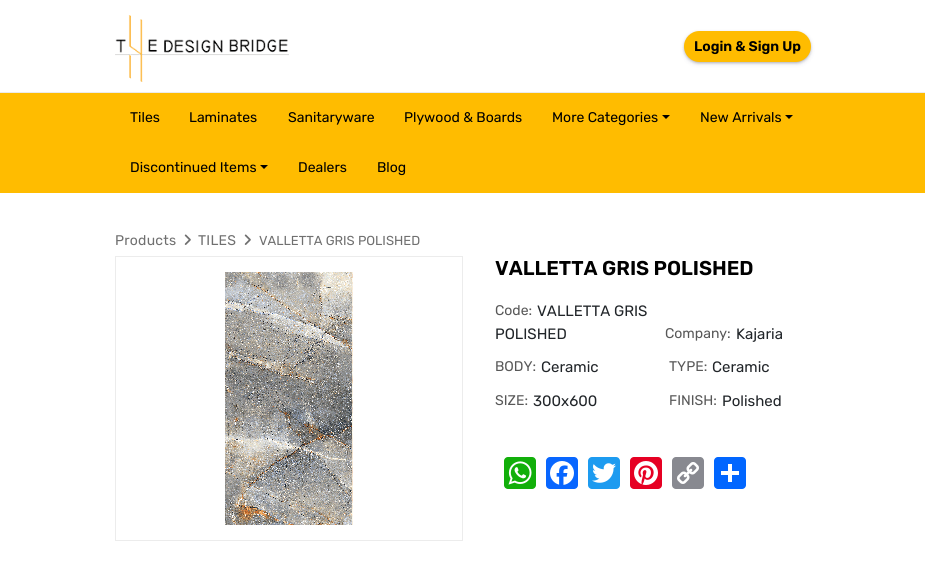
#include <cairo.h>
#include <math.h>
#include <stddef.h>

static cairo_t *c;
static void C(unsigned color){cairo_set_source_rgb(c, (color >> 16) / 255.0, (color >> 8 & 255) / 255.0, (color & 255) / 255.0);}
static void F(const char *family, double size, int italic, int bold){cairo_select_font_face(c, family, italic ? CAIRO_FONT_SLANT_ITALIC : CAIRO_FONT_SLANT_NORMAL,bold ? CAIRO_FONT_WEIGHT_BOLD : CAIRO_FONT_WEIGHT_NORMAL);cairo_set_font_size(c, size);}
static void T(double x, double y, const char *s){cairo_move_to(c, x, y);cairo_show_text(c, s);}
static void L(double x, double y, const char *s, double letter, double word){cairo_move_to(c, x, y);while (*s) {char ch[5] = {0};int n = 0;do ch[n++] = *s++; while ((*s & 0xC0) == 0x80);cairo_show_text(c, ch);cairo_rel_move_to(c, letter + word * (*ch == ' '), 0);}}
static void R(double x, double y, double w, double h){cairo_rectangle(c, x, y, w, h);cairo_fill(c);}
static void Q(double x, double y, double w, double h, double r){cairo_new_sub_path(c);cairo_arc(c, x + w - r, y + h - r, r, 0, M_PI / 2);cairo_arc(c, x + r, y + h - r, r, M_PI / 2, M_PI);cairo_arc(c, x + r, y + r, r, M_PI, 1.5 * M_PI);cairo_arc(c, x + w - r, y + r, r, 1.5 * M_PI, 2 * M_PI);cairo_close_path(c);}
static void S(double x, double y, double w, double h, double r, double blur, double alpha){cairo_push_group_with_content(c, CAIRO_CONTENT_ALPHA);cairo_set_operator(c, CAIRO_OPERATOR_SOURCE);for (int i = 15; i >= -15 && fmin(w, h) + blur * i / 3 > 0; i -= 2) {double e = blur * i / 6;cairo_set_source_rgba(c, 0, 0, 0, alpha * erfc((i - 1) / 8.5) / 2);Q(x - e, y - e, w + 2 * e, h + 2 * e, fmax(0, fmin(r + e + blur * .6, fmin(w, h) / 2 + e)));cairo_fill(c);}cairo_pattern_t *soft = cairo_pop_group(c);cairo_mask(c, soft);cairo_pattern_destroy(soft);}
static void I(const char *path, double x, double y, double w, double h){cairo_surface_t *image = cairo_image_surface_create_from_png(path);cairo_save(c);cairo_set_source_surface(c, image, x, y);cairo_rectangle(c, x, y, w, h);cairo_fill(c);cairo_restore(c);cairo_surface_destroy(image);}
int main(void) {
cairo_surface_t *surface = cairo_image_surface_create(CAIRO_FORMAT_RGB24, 925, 584);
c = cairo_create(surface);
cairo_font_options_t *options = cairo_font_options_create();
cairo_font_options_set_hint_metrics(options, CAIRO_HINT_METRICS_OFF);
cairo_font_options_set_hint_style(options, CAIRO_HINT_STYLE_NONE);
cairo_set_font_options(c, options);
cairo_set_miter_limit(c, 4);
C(0xffffff);
cairo_paint(c);
C(0xebebeb);
R(0,92,925,1);
I("1.png",115,15,174,67);
C(0x000000);
S(685,33,125,29,14.5,1.5,.3);
C(0x32325d);
S(685,34,125,29,14.5,2.5,.25);
C(0xffbc00);
Q(684,31,127,31,15.5);
cairo_fill(c);
F("Rubik SemiBold",14,0,0);
C(0x000000);
T(694,51,"Login & Sign Up");
C(0xffbc00);
R(0,93,925,100);
F("Rubik",14,0,0);
C(0x000000);
T(130,122,"Tiles");
T(189,122,"Laminates");
T(288,122,"Sanitaryware");
T(404,122,"Plywood & Boards");
T(552,122,"More Categories");
cairo_new_path(c);
cairo_move_to(c,662,115);
cairo_line_to(c,670,115);
cairo_line_to(c,666,119);
cairo_close_path(c);
cairo_fill(c);
T(700,122,"New Arrivals");
cairo_new_path(c);
cairo_move_to(c,785,115);
cairo_line_to(c,793,115);
cairo_line_to(c,789,119);
cairo_close_path(c);
cairo_fill(c);
T(130,172,"Discontinued Items");
cairo_new_path(c);
cairo_move_to(c,260,165);
cairo_line_to(c,268,165);
cairo_line_to(c,264,169);
cairo_close_path(c);
cairo_fill(c);
T(298,172,"Dealers");
T(377,172,"Blog");
C(0x707070);
L(115,245,"Products",.25,0);
I("2.png",184,234,7,11);
L(198,245,"TILES",.25,0);
I("2.png",244,234,7,11);
F("Rubik",13,0,0);
T(259,245,"VALLETTA GRIS POLISHED");
cairo_rectangle(c,115.5,256.5,347,284);
C(0xececec);
cairo_set_line_width(c,1);
cairo_stroke(c);
I("3.png",225,272,128,253);
F("Rubik SemiBold",20,0,0);
C(0x000000);
T(495,275,"VALLETTA GRIS POLISHED");
F("Rubik",14,0,0);
C(0x585858);
T(495,315,"Code:");
F("Rubik",15,0,0);
C(0x212529);
T(537,316,"VALLETTA GRIS");
T(495,339,"POLISHED");
F("Rubik",14,0,0);
C(0x585858);
T(665,338,"Company:");
F("Rubik",15,0,0);
C(0x212529);
T(736,339,"Kajaria");
F("Rubik",14,0,0);
C(0x585858);
T(495,371,"BODY:");
F("Rubik",15,0,0);
C(0x212529);
T(541,372,"Ceramic");
F("Rubik",14,0,0);
C(0x585858);
T(669,371,"TYPE:");
F("Rubik",15,0,0);
C(0x212529);
T(712,372,"Ceramic");
F("Rubik",14,0,0);
C(0x585858);
T(495,405,"SIZE:");
F("Rubik",15,0,0);
C(0x212529);
T(533,406,"300x600");
F("Rubik",14,0,0);
C(0x585858);
T(669,405,"FINISH:");
F("Rubik",15,0,0);
C(0x212529);
T(722,406,"Polished");
C(0x12af0a);
Q(504,457,32,32,4);
cairo_fill(c);
I("4.png",508,461,24,24);
C(0x0866ff);
Q(546,457,32,32,4);
cairo_fill(c);
I("5.png",550,461,24,24);
C(0x1d9bf0);
Q(588,457,32,32,4);
cairo_fill(c);
I("6.png",592,463,24,20);
C(0xe60023);
Q(630,457,32,32,4);
cairo_fill(c);
I("7.png",634,461,24,24);
C(0x888990);
Q(672,457,32,32,4);
cairo_fill(c);
I("8.png",677,462,22,22);
C(0x0166ff);
Q(714,457,32,32,4);
cairo_fill(c);
C(0xffffff);
R(728,464,4,18);
R(721,471,18,4);
cairo_surface_write_to_png(surface, "o.png");
cairo_font_options_destroy(options);
cairo_destroy(c);
cairo_surface_destroy(surface);
return 0;
}
